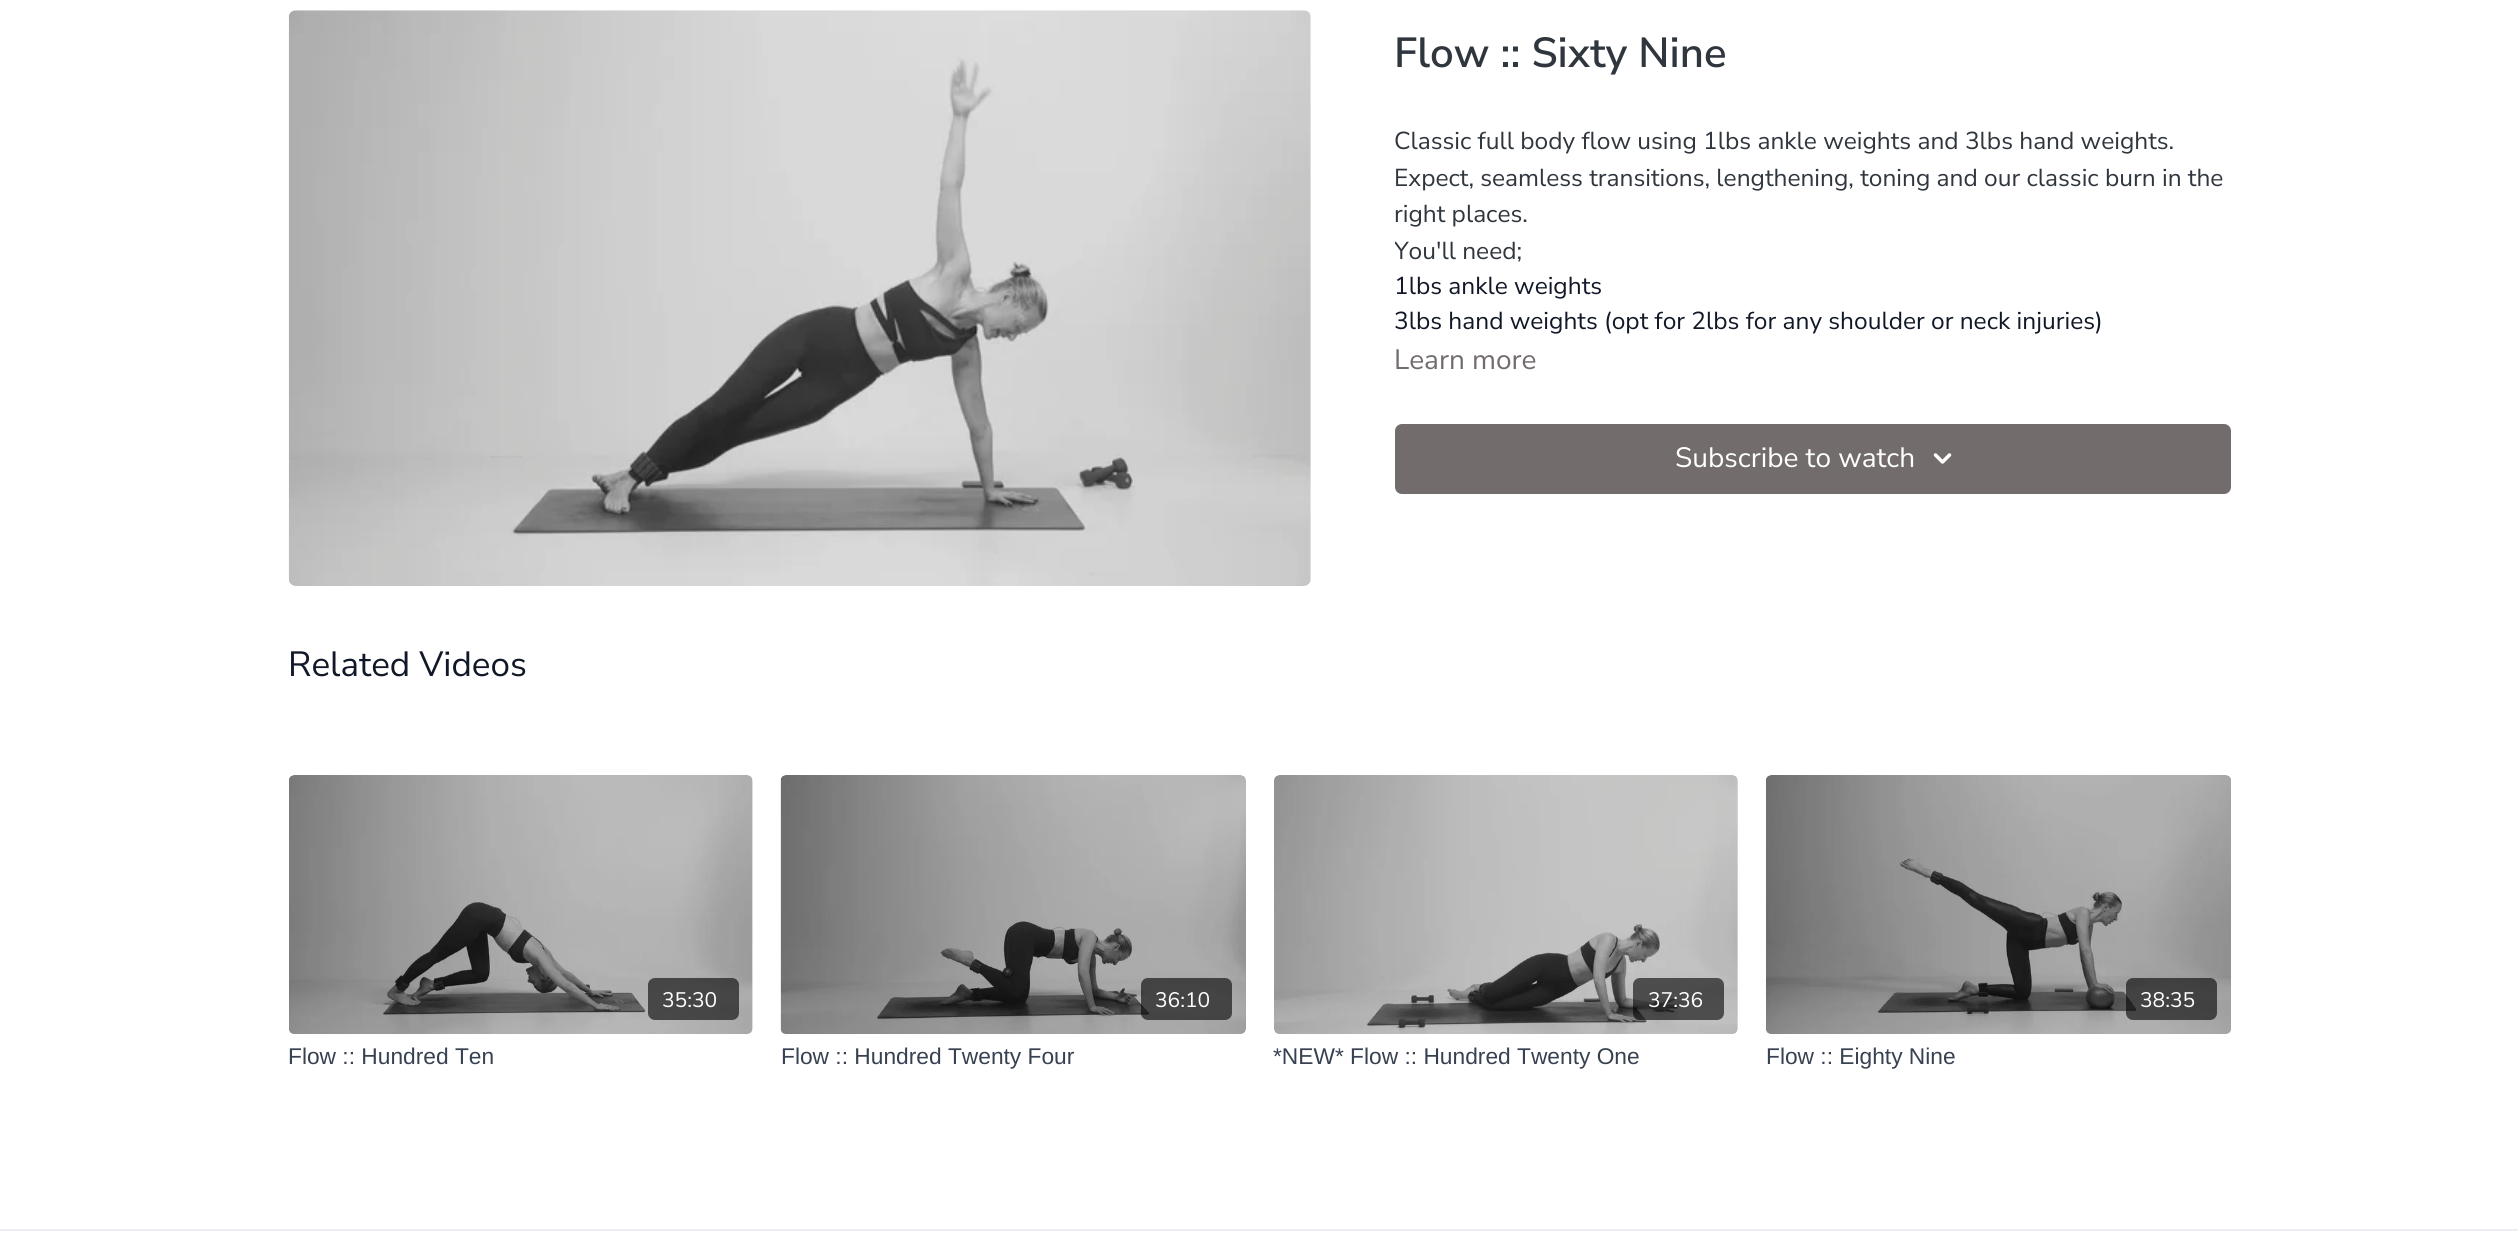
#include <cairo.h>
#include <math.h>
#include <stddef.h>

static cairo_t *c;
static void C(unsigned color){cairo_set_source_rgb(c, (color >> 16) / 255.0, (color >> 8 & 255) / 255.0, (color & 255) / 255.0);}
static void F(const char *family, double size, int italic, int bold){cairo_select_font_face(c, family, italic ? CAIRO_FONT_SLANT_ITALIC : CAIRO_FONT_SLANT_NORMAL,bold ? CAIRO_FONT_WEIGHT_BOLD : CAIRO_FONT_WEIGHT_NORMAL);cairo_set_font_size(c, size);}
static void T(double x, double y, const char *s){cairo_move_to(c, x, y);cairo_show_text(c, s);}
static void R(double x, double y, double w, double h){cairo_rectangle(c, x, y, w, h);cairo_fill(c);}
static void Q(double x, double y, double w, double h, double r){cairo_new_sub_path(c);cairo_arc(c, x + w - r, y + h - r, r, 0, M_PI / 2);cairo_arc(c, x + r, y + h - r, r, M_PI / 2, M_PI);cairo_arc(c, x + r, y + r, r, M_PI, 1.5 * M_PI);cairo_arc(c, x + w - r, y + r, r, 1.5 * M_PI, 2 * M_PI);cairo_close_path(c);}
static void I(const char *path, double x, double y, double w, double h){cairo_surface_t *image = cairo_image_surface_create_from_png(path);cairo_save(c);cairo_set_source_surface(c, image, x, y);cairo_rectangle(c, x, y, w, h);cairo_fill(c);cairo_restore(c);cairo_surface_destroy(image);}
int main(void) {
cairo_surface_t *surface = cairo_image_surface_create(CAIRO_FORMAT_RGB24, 2518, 1259);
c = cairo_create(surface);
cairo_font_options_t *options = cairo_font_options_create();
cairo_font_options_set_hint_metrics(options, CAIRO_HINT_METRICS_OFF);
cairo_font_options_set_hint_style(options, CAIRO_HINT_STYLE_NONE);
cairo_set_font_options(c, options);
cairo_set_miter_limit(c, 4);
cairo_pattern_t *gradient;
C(0xffffff);
cairo_paint(c);
I("1.png",288,10,1023,576);
F("Nunito Sans SemiBold",42,0,0);
C(0x30363e);
T(1394,67,"Flow :: Sixty Nine");
F("Nunito Sans",24.5,0,0);
T(1394,149,"Classic full body flow using 1lbs ankle weights and 3lbs hand weights.");
T(1394,186,"Expect, seamless transitions, lengthening, toning and our classic burn in the");
T(1394,222,"right places.");
cairo_save(c);
cairo_rectangle(c,1395,123,836,217);
cairo_clip(c);
T(1394,259,"You'll need;");
cairo_restore(c);
C(0x111827);
T(1394,294,"1lbs ankle weights");
T(1394,329,"3lbs hand weights (opt for 2lbs for any shoulder or neck injuries)");
F("Nunito Sans",28,0,0);
C(0x736c6c);
T(1394,369,"Learn more");
Q(1395,424,836,70,7);
cairo_fill(c);
C(0xffffff);
T(1675,467,"Subscribe to watch");
I("2.png",1933,453,19,11);
F("Nunito Sans",35,0,0);
C(0x111827);
T(288,676,"Related Videos");
gradient = cairo_pattern_create_linear(289,905,753,905);
cairo_pattern_add_color_stop_rgba(gradient,.08,0.871,0.871,0.871,1);
cairo_pattern_add_color_stop_rgba(gradient,.18,0.882,0.882,0.882,1);
cairo_pattern_add_color_stop_rgba(gradient,.33,0.89,0.89,0.89,1);
cairo_set_source(c,gradient);
cairo_pattern_destroy(gradient);
Q(289,775,464,259,7);
cairo_fill(c);
I("3.png",289,775,464,259);
cairo_set_source_rgba(c,0,0,0,0.6);
Q(648,978,91,42,7);
cairo_fill(c);
F("Nunito Sans",21,0,0);
C(0xffffff);
T(662,1007,"35:30");
F("Liberation Sans",22.75,0,0);
C(0x374151);
T(288,1064,"Flow :: Hundred Ten");
I("4.png",780,775,466,259);
cairo_set_source_rgba(c,0,0,0,0.6);
Q(1141,978,91,42,7);
cairo_fill(c);
F("Nunito Sans",21,0,0);
C(0xffffff);
T(1155,1007,"36:10");
F("Liberation Sans",22.75,0,0);
C(0x374151);
T(781,1064,"Flow :: Hundred Twenty Four");
gradient = cairo_pattern_create_linear(1274,905,1738,905);
cairo_pattern_add_color_stop_rgba(gradient,.08,0.871,0.871,0.871,1);
cairo_pattern_add_color_stop_rgba(gradient,.18,0.882,0.882,0.882,1);
cairo_pattern_add_color_stop_rgba(gradient,.33,0.89,0.89,0.89,1);
cairo_set_source(c,gradient);
cairo_pattern_destroy(gradient);
Q(1274,775,464,259,7);
cairo_fill(c);
I("5.png",1274,775,464,259);
cairo_set_source_rgba(c,0,0,0,0.6);
Q(1633,978,91,42,7);
cairo_fill(c);
F("Nunito Sans",21,0,0);
C(0xffffff);
T(1648,1007,"37:36");
F("Liberation Sans",22.75,0,0);
C(0x374151);
T(1273,1064,"*NEW* Flow :: Hundred Twenty One");
I("6.png",1766,775,465,259);
cairo_set_source_rgba(c,0,0,0,0.6);
Q(2126,978,91,42,7);
cairo_fill(c);
F("Nunito Sans",21,0,0);
C(0xffffff);
T(2140,1007,"38:35");
F("Liberation Sans",22.75,0,0);
C(0x374151);
T(1766,1064,"Flow :: Eighty Nine");
C(0xebeef3);
R(0,1229,2518,2);
cairo_surface_write_to_png(surface, "o.png");
cairo_font_options_destroy(options);
cairo_destroy(c);
cairo_surface_destroy(surface);
return 0;
}
